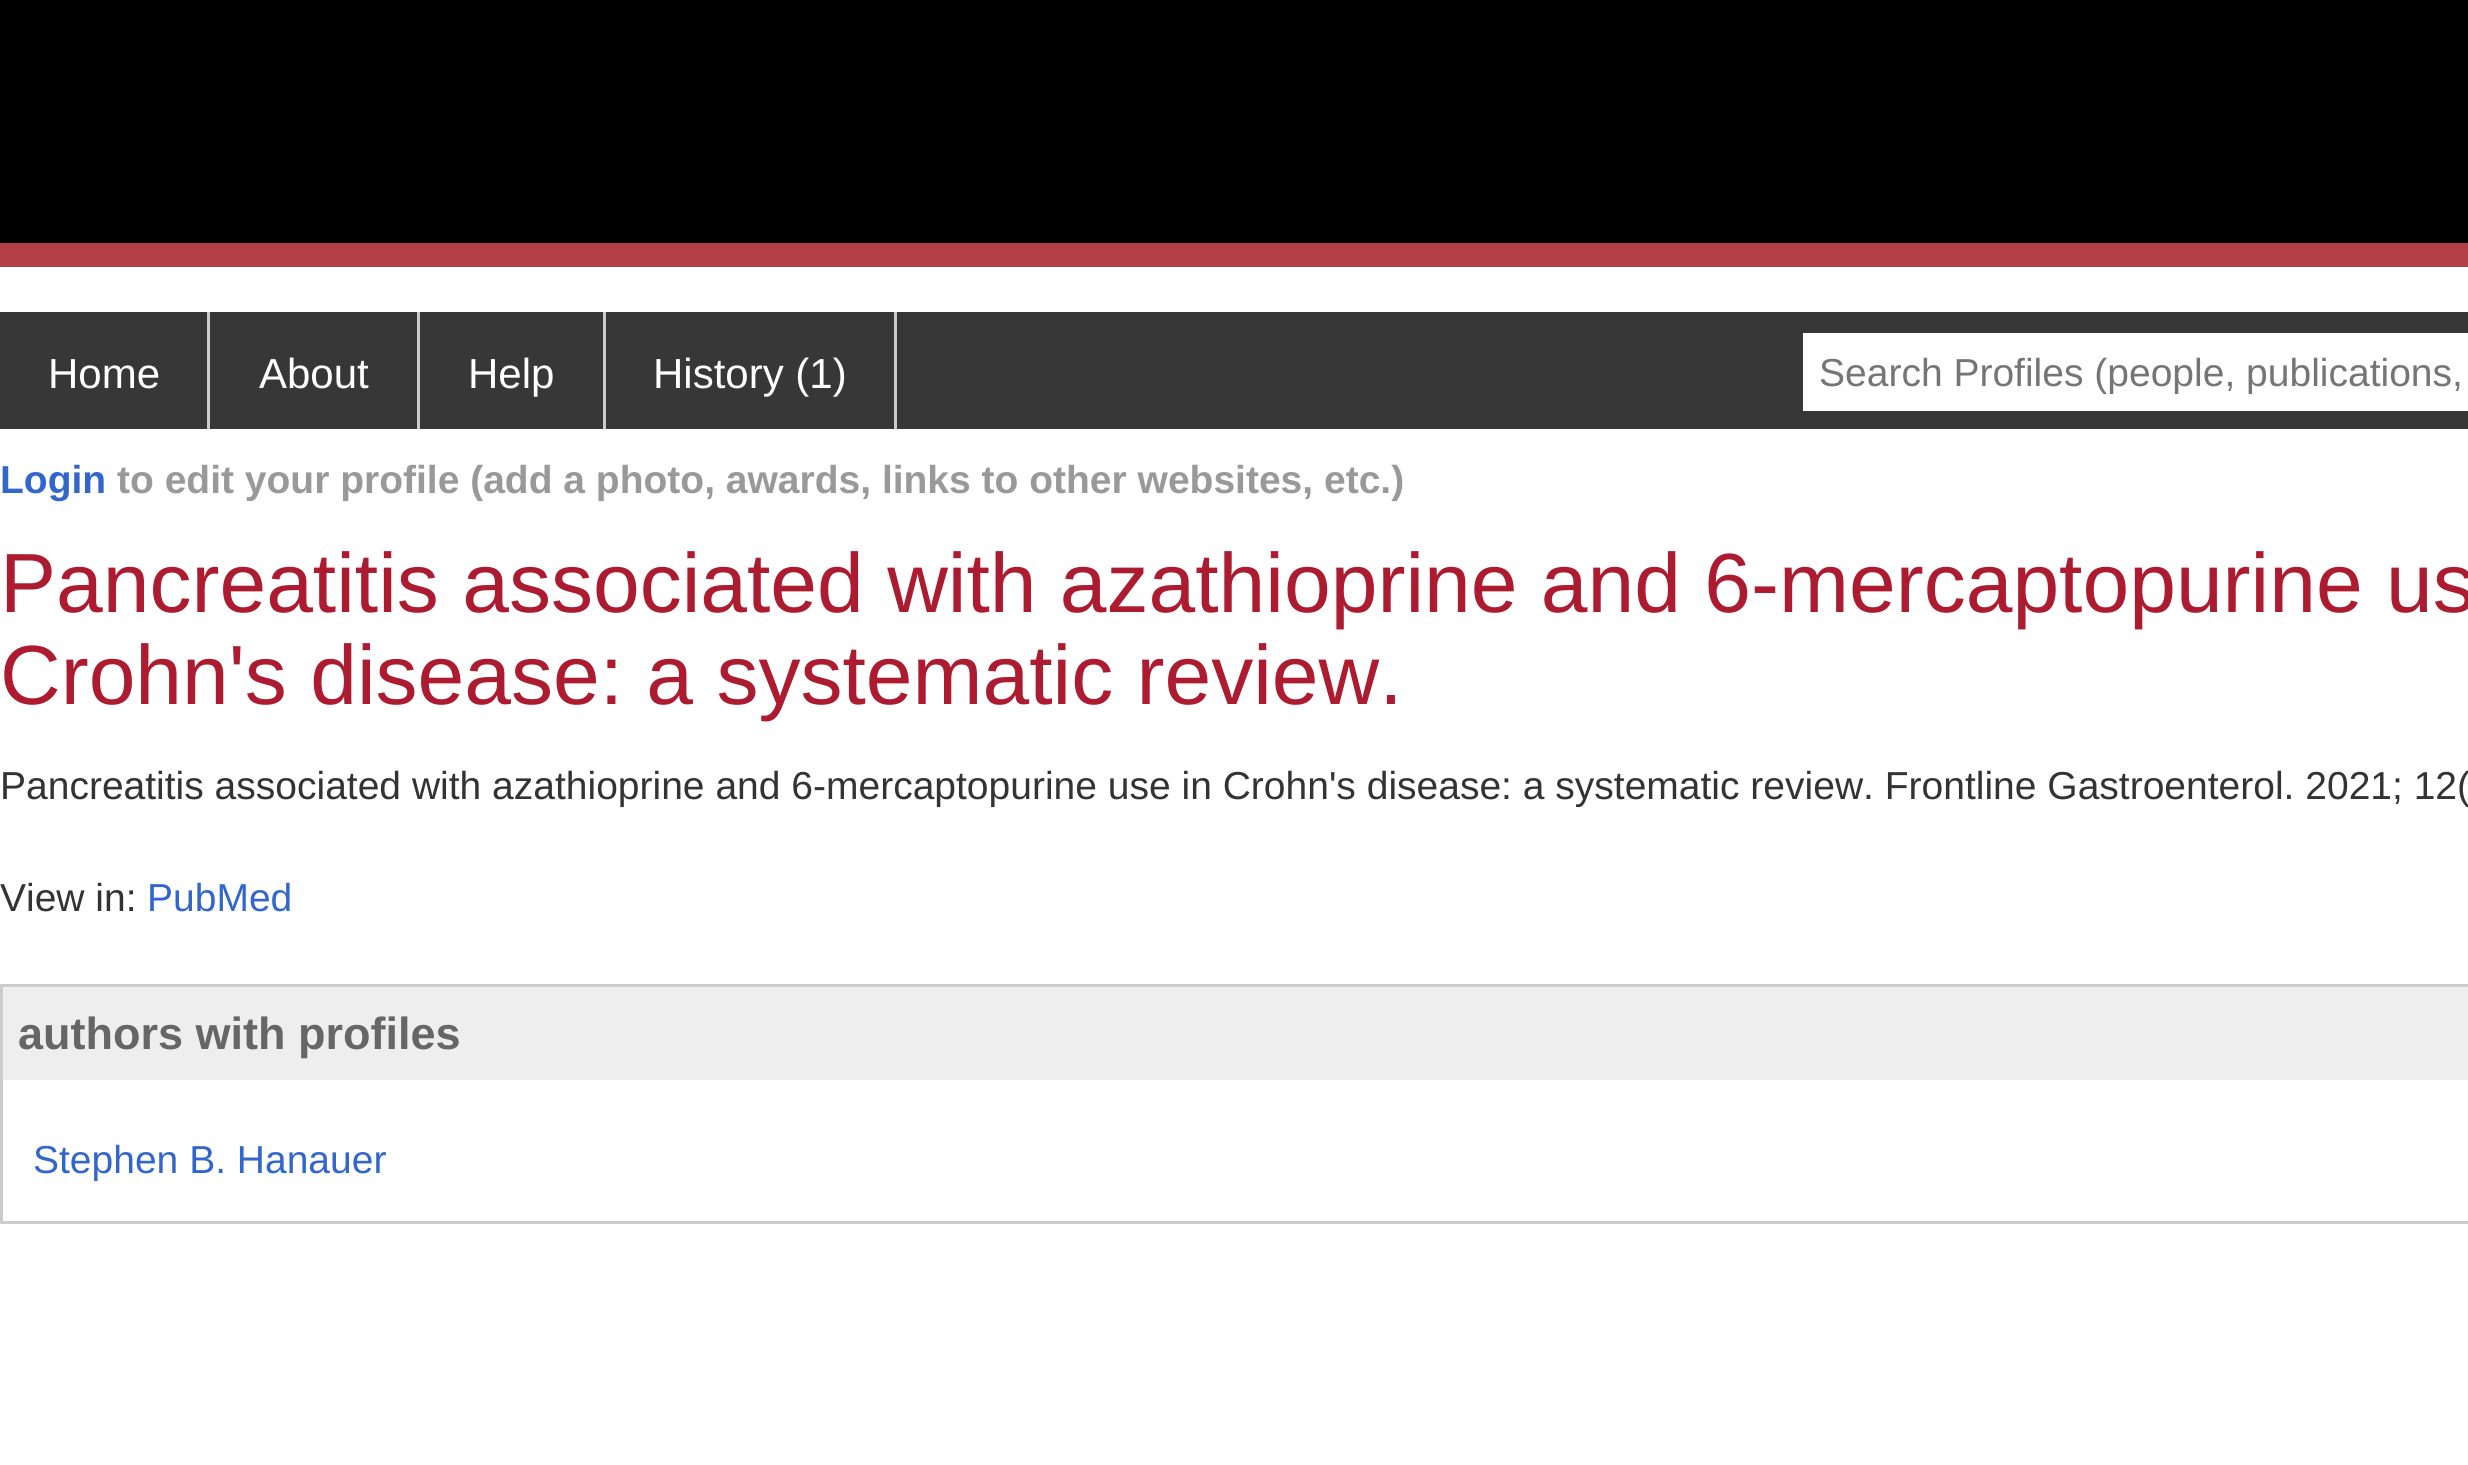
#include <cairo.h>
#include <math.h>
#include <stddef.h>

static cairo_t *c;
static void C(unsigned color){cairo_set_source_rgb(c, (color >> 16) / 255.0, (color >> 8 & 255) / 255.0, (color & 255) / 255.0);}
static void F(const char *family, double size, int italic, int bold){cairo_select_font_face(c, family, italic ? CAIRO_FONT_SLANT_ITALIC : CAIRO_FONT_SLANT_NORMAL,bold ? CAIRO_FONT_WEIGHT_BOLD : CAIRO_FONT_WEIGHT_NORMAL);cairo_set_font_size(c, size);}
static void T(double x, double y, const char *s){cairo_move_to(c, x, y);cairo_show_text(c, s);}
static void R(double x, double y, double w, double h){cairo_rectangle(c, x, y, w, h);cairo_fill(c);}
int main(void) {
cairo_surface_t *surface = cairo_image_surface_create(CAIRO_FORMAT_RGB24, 2468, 1465);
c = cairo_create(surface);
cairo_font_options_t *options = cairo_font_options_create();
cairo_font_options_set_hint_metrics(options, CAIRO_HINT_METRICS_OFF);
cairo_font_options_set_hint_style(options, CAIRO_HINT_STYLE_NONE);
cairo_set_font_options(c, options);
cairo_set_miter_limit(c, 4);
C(0xffffff);
cairo_paint(c);
C(0x000000);
R(0,0,2468,243);
C(0xb23f45);
R(0,243,2468,24);
C(0x383737);
R(0,312,2468,117);
C(0xcccccc);
R(207,312,3,117);
F("Liberation Sans",42,0,0);
C(0xffffff);
T(48,388,"Home");
C(0xcccccc);
R(417,312,3,117);
C(0xffffff);
T(259,388,"About");
C(0xcccccc);
R(603,312,3,117);
C(0xffffff);
T(468,388,"Help");
C(0xcccccc);
R(894,312,3,117);
C(0xffffff);
T(653,388,"History (1)");
R(1803,333,665,78);
F("Liberation Sans",39,0,0);
C(0x757575);
T(1819,386,"Search Profiles (people, publications,");
F("Liberation Sans",39,0,1);
C(0x3366cc);
T(0,493,"Login");
C(0x999999);
T(117,493,"to edit your profile (add a photo, awards, links to other websites, etc.)");
F("Liberation Sans",84,0,0);
C(0xac1b30);
T(0,612,"Pancreatitis associated with azathioprine and 6-mercaptopurine us");
T(0,704,"Crohn's disease: a systematic review.");
F("Liberation Sans",39,0,0);
C(0x333333);
T(0,799,"Pancreatitis associated with azathioprine and 6-mercaptopurine use in Crohn's disease: a systematic review. Frontline Gastroenterol. 2021; 12(");
T(0,911,"View in:");
C(0x3366cc);
T(147,911,"PubMed");
cairo_rectangle(c,1.5,985.5,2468,237);
C(0xcccccc);
cairo_set_line_width(c,3);
cairo_stroke(c);
C(0xeeeeee);
R(3,987,2465,93);
F("Liberation Sans",45,0,1);
C(0x666666);
T(18,1049,"authors with profiles");
F("Liberation Sans",39,0,0);
C(0x3366cc);
T(33,1173,"Stephen B. Hanauer");
cairo_surface_write_to_png(surface, "o.png");
cairo_font_options_destroy(options);
cairo_destroy(c);
cairo_surface_destroy(surface);
return 0;
}
